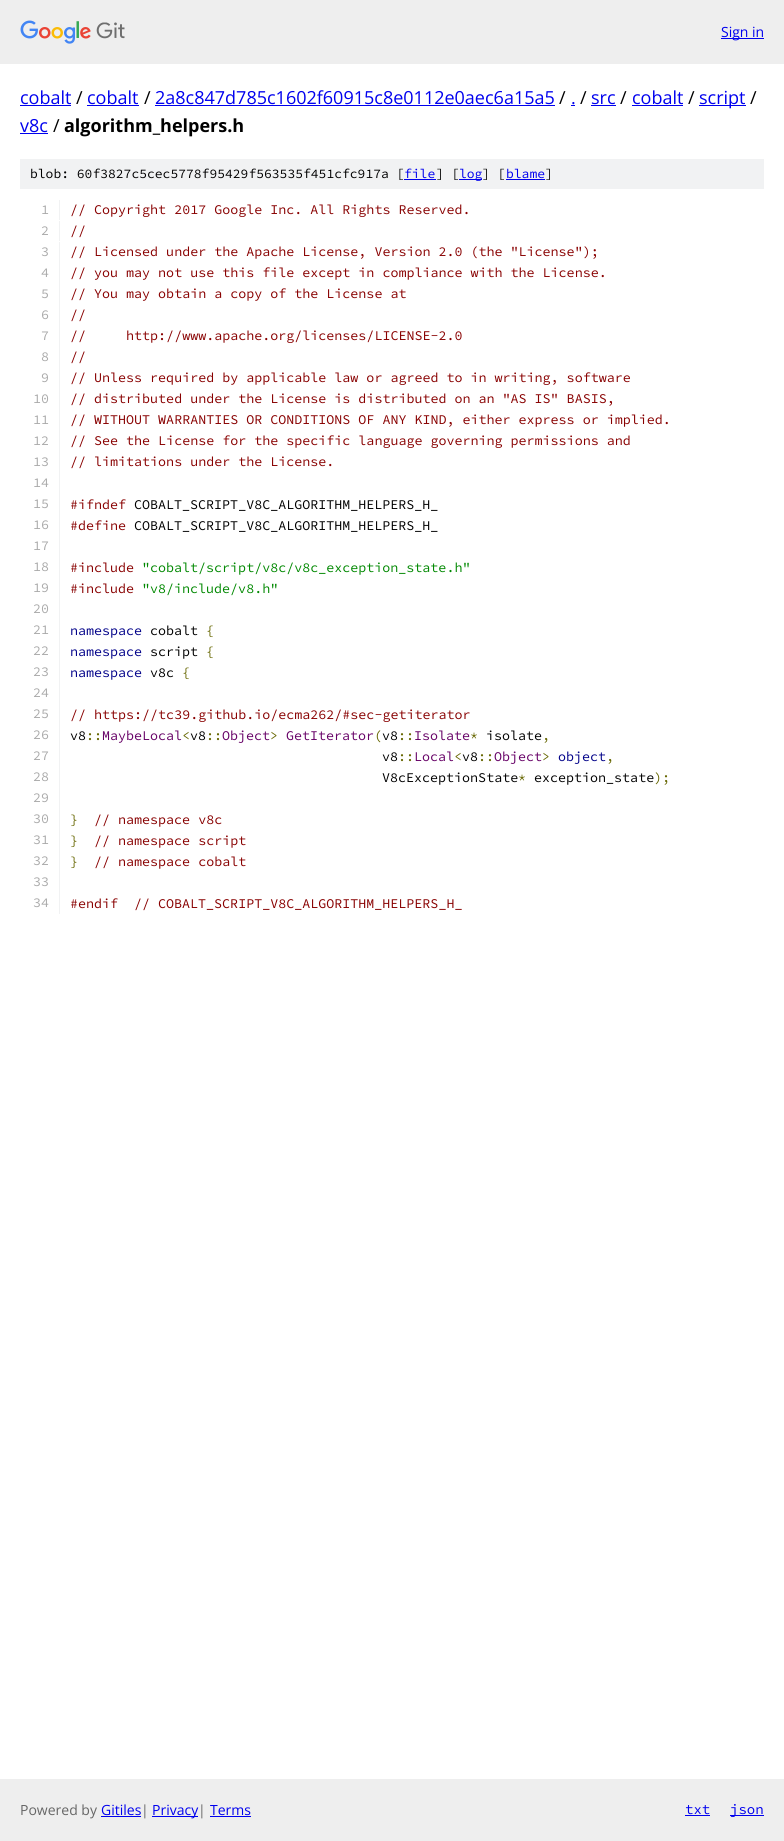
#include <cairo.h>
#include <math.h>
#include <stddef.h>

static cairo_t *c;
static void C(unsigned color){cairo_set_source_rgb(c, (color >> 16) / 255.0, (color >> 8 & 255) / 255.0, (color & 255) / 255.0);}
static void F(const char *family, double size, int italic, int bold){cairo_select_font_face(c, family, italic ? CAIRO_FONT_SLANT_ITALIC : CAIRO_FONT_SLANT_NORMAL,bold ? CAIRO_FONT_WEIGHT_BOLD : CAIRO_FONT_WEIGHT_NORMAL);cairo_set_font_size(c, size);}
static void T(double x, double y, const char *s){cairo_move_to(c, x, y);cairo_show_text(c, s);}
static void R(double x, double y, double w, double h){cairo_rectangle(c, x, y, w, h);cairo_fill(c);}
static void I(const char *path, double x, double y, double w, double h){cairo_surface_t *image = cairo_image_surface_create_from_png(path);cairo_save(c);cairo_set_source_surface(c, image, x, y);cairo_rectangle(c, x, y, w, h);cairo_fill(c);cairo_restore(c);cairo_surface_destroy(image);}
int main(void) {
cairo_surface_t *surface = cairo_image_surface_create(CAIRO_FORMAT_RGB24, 784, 1841);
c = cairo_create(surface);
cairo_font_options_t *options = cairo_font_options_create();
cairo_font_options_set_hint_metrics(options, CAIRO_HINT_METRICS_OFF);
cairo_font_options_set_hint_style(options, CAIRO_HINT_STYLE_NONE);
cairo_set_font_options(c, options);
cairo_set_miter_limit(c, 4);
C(0xffffff);
cairo_paint(c);
C(0xeeeeee);
R(0,0,784,64);
I("1.png",20,20,105,24);
C(0x0000ee);
R(721,38,43,1);
F("Open Sans",14,0,0);
T(721,37,"Sign in");
F("Open Sans",18,0,0);
T(20,104,"cobalt");
R(20,105,51,1);
C(0x000000);
T(76,104,"/");
C(0x0000ee);
T(87,104,"cobalt");
R(87,105,52,1);
C(0x000000);
T(144,104,"/");
C(0x0000ee);
T(155,104,"2a8c847d785c1602f60915c8e0112e0aec6a15a5");
R(155,105,400,1);
C(0x000000);
T(559,104,"/");
C(0x0000ee);
T(571,104,".");
R(571,105,4,1);
C(0x000000);
T(580,104,"/");
C(0x0000ee);
T(591,104,"src");
R(591,105,25,1);
C(0x000000);
T(620,104,"/");
C(0x0000ee);
T(632,104,"cobalt");
R(632,105,51,1);
C(0x000000);
T(688,104,"/");
C(0x0000ee);
R(699,105,47,1);
T(699,104,"script");
C(0x000000);
T(750,104,"/");
C(0x0000ee);
T(20,132,"v8c");
R(20,133,28,1);
C(0x000000);
T(53,132,"/");
F("Open Sans",18,0,1);
T(64,132,"algorithm_helpers.h");
C(0xf1f2f3);
R(20,159,744,30);
F("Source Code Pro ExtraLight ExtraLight",13,0,0);
C(0x000000);
T(30,178,"blob: 60f3827c5cec5778f95429f563535f451cfc917a [");
C(0x0000ee);
T(404,178,"file");
R(404,179,32,1);
C(0x000000);
T(436,178,"] [");
C(0x0000ee);
R(459,179,23,1);
T(459,178,"log");
C(0x000000);
T(482,178,"] [");
C(0x0000ee);
T(506,178,"blame");
R(506,179,39,1);
C(0x000000);
T(545,178,"]");
C(0xf1f2f3);
R(59,200,1,20);
F("Source Code Pro ExtraLight ExtraLight",13.35,0,0);
C(0xaaaaaa);
T(41,214,"1");
C(0x880000);
T(70,214,"// Copyright 2017 Google Inc. All Rights Reserved.");
C(0xf1f2f3);
R(59,221,1,20);
C(0xaaaaaa);
T(41,235,"2");
C(0x880000);
T(70,235,"//");
C(0xf1f2f3);
R(59,242,1,672);
C(0xaaaaaa);
T(41,256,"3");
C(0x880000);
T(70,256,"// Licensed under the Apache License, Version 2.0 (the \"License\");");
C(0xaaaaaa);
T(41,277,"4");
C(0x880000);
T(70,277,"// you may not use this file except in compliance with the License.");
C(0xaaaaaa);
T(41,298,"5");
C(0x880000);
T(70,298,"// You may obtain a copy of the License at");
C(0xaaaaaa);
T(41,319,"6");
C(0x880000);
T(70,319,"//");
C(0xaaaaaa);
T(41,340,"7");
C(0x880000);
T(70,340,"//     http://www.apache.org/licenses/LICENSE-2.0");
C(0xaaaaaa);
T(41,361,"8");
C(0x880000);
T(70,361,"//");
C(0xaaaaaa);
T(41,382,"9");
C(0x880000);
T(70,382,"// Unless required by applicable law or agreed to in writing, software");
C(0xaaaaaa);
T(33,403,"10");
C(0x880000);
T(70,403,"// distributed under the License is distributed on an \"AS IS\" BASIS,");
C(0xaaaaaa);
T(33,424,"11");
C(0x880000);
T(70,424,"// WITHOUT WARRANTIES OR CONDITIONS OF ANY KIND, either express or implied.");
C(0xaaaaaa);
T(33,445,"12");
C(0x880000);
T(70,445,"// See the License for the specific language governing permissions and");
C(0xaaaaaa);
T(33,466,"13");
C(0x880000);
T(70,466,"// limitations under the License.");
C(0xaaaaaa);
T(33,487,"14");
T(33,508,"15");
C(0x880000);
T(70,509,"#ifndef");
C(0x000000);
T(134,509,"COBALT_SCRIPT_V8C_ALGORITHM_HELPERS_H_");
C(0xaaaaaa);
T(33,529,"16");
C(0x880000);
T(70,530,"#define");
C(0x000000);
T(134,530,"COBALT_SCRIPT_V8C_ALGORITHM_HELPERS_H_");
C(0xaaaaaa);
T(33,550,"17");
T(33,571,"18");
C(0x880000);
T(70,572,"#include");
C(0x008800);
T(142,572,"\"cobalt/script/v8c/v8c_exception_state.h\"");
C(0xaaaaaa);
T(33,592,"19");
C(0x880000);
T(70,593,"#include");
C(0x008800);
T(142,593,"\"v8/include/v8.h\"");
C(0xaaaaaa);
T(33,613,"20");
T(33,634,"21");
C(0x000088);
T(70,635,"namespace");
C(0x000000);
T(150,635,"cobalt");
C(0x666600);
T(206,635,"{");
C(0xaaaaaa);
T(33,655,"22");
C(0x000088);
T(70,656,"namespace");
C(0x000000);
T(150,656,"script");
C(0x666600);
T(206,656,"{");
C(0xaaaaaa);
T(33,676,"23");
C(0x000088);
T(70,677,"namespace");
C(0x000000);
T(150,677,"v8c");
C(0x666600);
T(182,677,"{");
C(0xaaaaaa);
T(33,697,"24");
T(33,718,"25");
C(0x880000);
T(70,719,"// https://tc39.github.io/ecma262/#sec-getiterator");
C(0xaaaaaa);
T(33,739,"26");
C(0x000000);
T(70,740,"v8");
C(0x666600);
T(86,740,"::");
C(0x660066);
T(102,740,"MaybeLocal");
C(0x666600);
T(182,740,"<");
C(0x000000);
T(190,740,"v8");
C(0x666600);
T(206,740,"::");
C(0x660066);
T(222,740,"Object");
C(0x666600);
T(270,740,">");
C(0x660066);
T(286,740,"GetIterator");
C(0x666600);
T(374,740,"(");
C(0x000000);
T(382,740,"v8");
C(0x666600);
T(398,740,"::");
C(0x660066);
T(414,740,"Isolate");
C(0x666600);
T(470,740,"*");
C(0x000000);
T(486,740,"isolate");
C(0x666600);
T(542,740,",");
C(0xaaaaaa);
T(33,760,"27");
C(0x000000);
T(382,761,"v8");
C(0x666600);
T(398,761,"::");
C(0x660066);
T(414,761,"Local");
C(0x666600);
T(454,761,"<");
C(0x000000);
T(462,761,"v8");
C(0x666600);
T(478,761,"::");
C(0x660066);
T(494,761,"Object");
C(0x666600);
T(542,761,">");
C(0x000088);
T(558,761,"object");
C(0x666600);
T(606,761,",");
C(0xaaaaaa);
T(33,781,"28");
C(0x000000);
T(382,782,"V8cExceptionState");
C(0x666600);
T(518,782,"*");
C(0x000000);
T(534,782,"exception_state");
C(0x666600);
T(654,782,");");
C(0xaaaaaa);
T(33,802,"29");
T(33,823,"30");
C(0x666600);
T(70,824,"}");
C(0x880000);
T(94,824,"// namespace v8c");
C(0xaaaaaa);
T(33,844,"31");
C(0x666600);
T(70,845,"}");
C(0x880000);
T(94,845,"// namespace script");
C(0xaaaaaa);
T(33,865,"32");
C(0x666600);
T(70,866,"}");
C(0x880000);
T(94,866,"// namespace cobalt");
C(0xaaaaaa);
T(33,886,"33");
T(33,907,"34");
C(0x880000);
T(70,908,"#endif");
T(134,908,"// COBALT_SCRIPT_V8C_ALGORITHM_HELPERS_H_");
C(0xeeeeee);
R(0,1779,784,62);
F("Open Sans",14,0,0);
C(0x666666);
T(20,1815,"Powered by");
C(0x0000ee);
T(101,1815,"Gitiles");
R(101,1816,40,1);
C(0x666666);
T(141,1815,"|");
C(0x0000ee);
R(152,1816,46,1);
T(152,1815,"Privacy");
C(0x666666);
T(198,1815,"|");
C(0x0000ee);
T(210,1815,"Terms");
R(210,1816,41,1);
F("Source Code Pro ExtraLight ExtraLight",14,0,0);
T(685,1814,"txt");
R(685,1815,25,1);
R(730,1815,34,1);
T(730,1814,"json");
cairo_surface_write_to_png(surface, "o.png");
cairo_font_options_destroy(options);
cairo_destroy(c);
cairo_surface_destroy(surface);
return 0;
}
